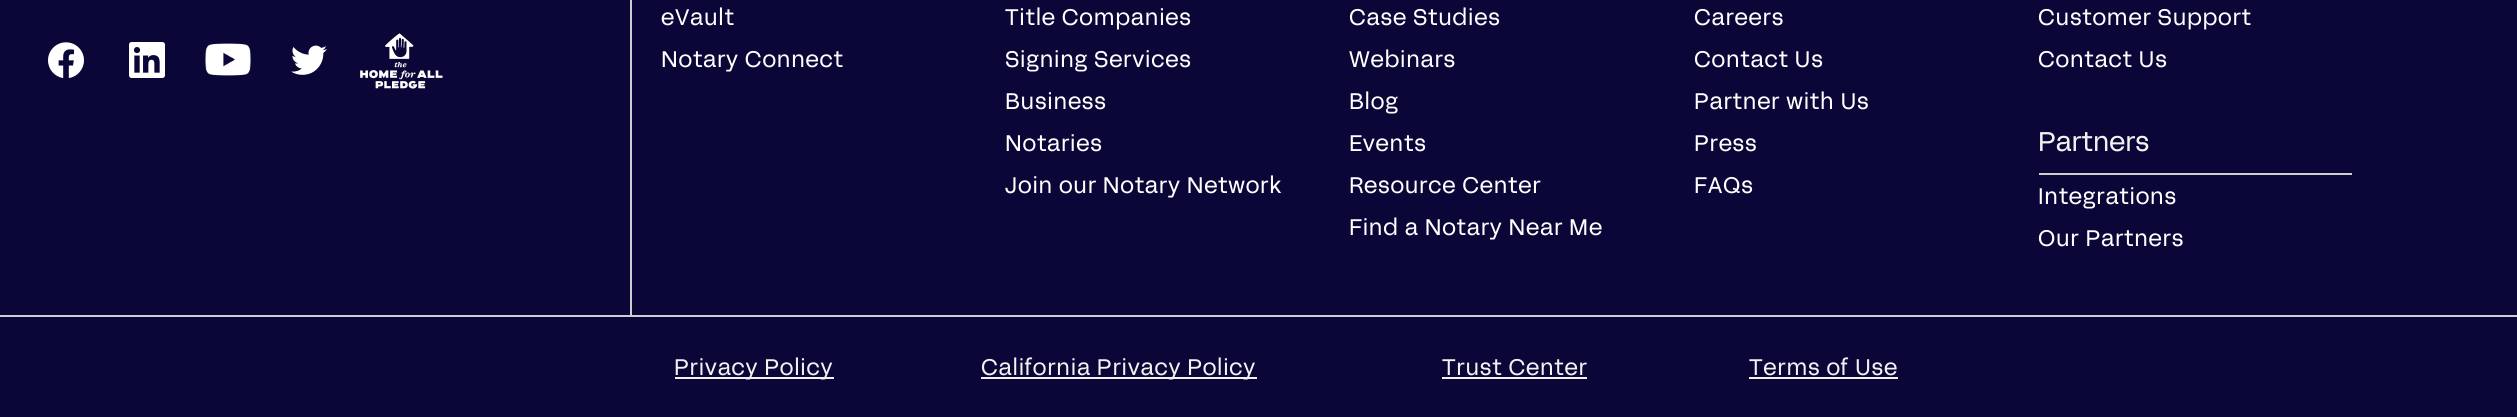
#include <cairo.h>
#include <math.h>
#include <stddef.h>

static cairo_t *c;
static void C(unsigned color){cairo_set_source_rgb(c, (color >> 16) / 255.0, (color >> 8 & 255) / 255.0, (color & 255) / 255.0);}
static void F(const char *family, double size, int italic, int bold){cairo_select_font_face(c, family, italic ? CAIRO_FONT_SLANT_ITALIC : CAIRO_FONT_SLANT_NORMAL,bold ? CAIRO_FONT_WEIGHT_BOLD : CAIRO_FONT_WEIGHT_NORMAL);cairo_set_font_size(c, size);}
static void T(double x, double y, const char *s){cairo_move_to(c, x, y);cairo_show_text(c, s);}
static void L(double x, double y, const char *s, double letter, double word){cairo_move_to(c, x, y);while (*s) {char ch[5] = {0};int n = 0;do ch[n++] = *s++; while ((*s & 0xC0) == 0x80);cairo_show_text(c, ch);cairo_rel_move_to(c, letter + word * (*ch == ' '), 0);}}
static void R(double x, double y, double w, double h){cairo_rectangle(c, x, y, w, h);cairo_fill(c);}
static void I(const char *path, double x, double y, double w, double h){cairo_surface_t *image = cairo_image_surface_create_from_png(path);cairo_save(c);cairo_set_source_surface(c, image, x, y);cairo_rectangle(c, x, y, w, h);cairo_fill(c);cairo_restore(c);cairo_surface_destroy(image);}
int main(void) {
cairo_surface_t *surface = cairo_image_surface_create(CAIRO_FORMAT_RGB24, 2517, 417);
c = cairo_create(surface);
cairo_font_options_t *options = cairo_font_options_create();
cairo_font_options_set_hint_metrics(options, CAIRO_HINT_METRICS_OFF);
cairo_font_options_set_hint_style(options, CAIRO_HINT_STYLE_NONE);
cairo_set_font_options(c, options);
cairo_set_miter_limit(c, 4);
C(0x0a0637);
cairo_paint(c);
C(0xcecece);
R(0,315,2517,2);
I("1.png",48,42,36,36);
I("2.png",129,42,36,36);
I("3.png",205,43,46,33);
I("4.png",291,45,36,30);
I("5.png",360,33,83,56);
R(630,0,2,315);
F("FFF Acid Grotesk",22.5,0,0);
C(0xffffff);
L(661,25,"eVault",.75,0);
L(661,67,"Notary Connect",.75,0);
L(1005,25,"Title Companies",.75,0);
L(1005,67,"Signing Services",.75,0);
L(1005,109,"Business",.75,0);
L(1005,151,"Notaries",.75,0);
L(1005,193,"Join our Notary Network",.75,0);
L(1349,25,"Case Studies",.75,0);
L(1349,67,"Webinars",.75,0);
L(1349,109,"Blog",.75,0);
L(1349,151,"Events",.75,0);
L(1349,193,"Resource Center",.75,0);
L(1349,235,"Find a Notary Near Me",.75,0);
L(1694,25,"Careers",.75,0);
L(1694,67,"Contact Us",.75,0);
L(1694,109,"Partner with Us",.75,0);
L(1694,151,"Press",.75,0);
L(1694,193,"FAQs",.75,0);
L(2038,25,"Customer Support",.75,0);
L(2038,67,"Contact Us",.75,0);
C(0xcecece);
R(2039,173,313,2);
F("FFF Acid Grotesk",27,0,0);
C(0xf2f2f2);
T(2038,151,"Partners");
F("FFF Acid Grotesk",22.5,0,0);
C(0xffffff);
L(2038,204,"Integrations",.75,0);
L(2038,246,"Our Partners",.75,0);
C(0xf2f2f2);
R(675,377,159,2);
L(674,375,"Privacy Policy",.75,0);
R(981,377,276,2);
L(981,375,"California Privacy Policy",.75,0);
L(1442,375,"Trust Center",.75,0);
R(1442,377,145,2);
L(1749,375,"Terms of Use",.75,0);
R(1749,377,149,2);
cairo_surface_write_to_png(surface, "o.png");
cairo_font_options_destroy(options);
cairo_destroy(c);
cairo_surface_destroy(surface);
return 0;
}
